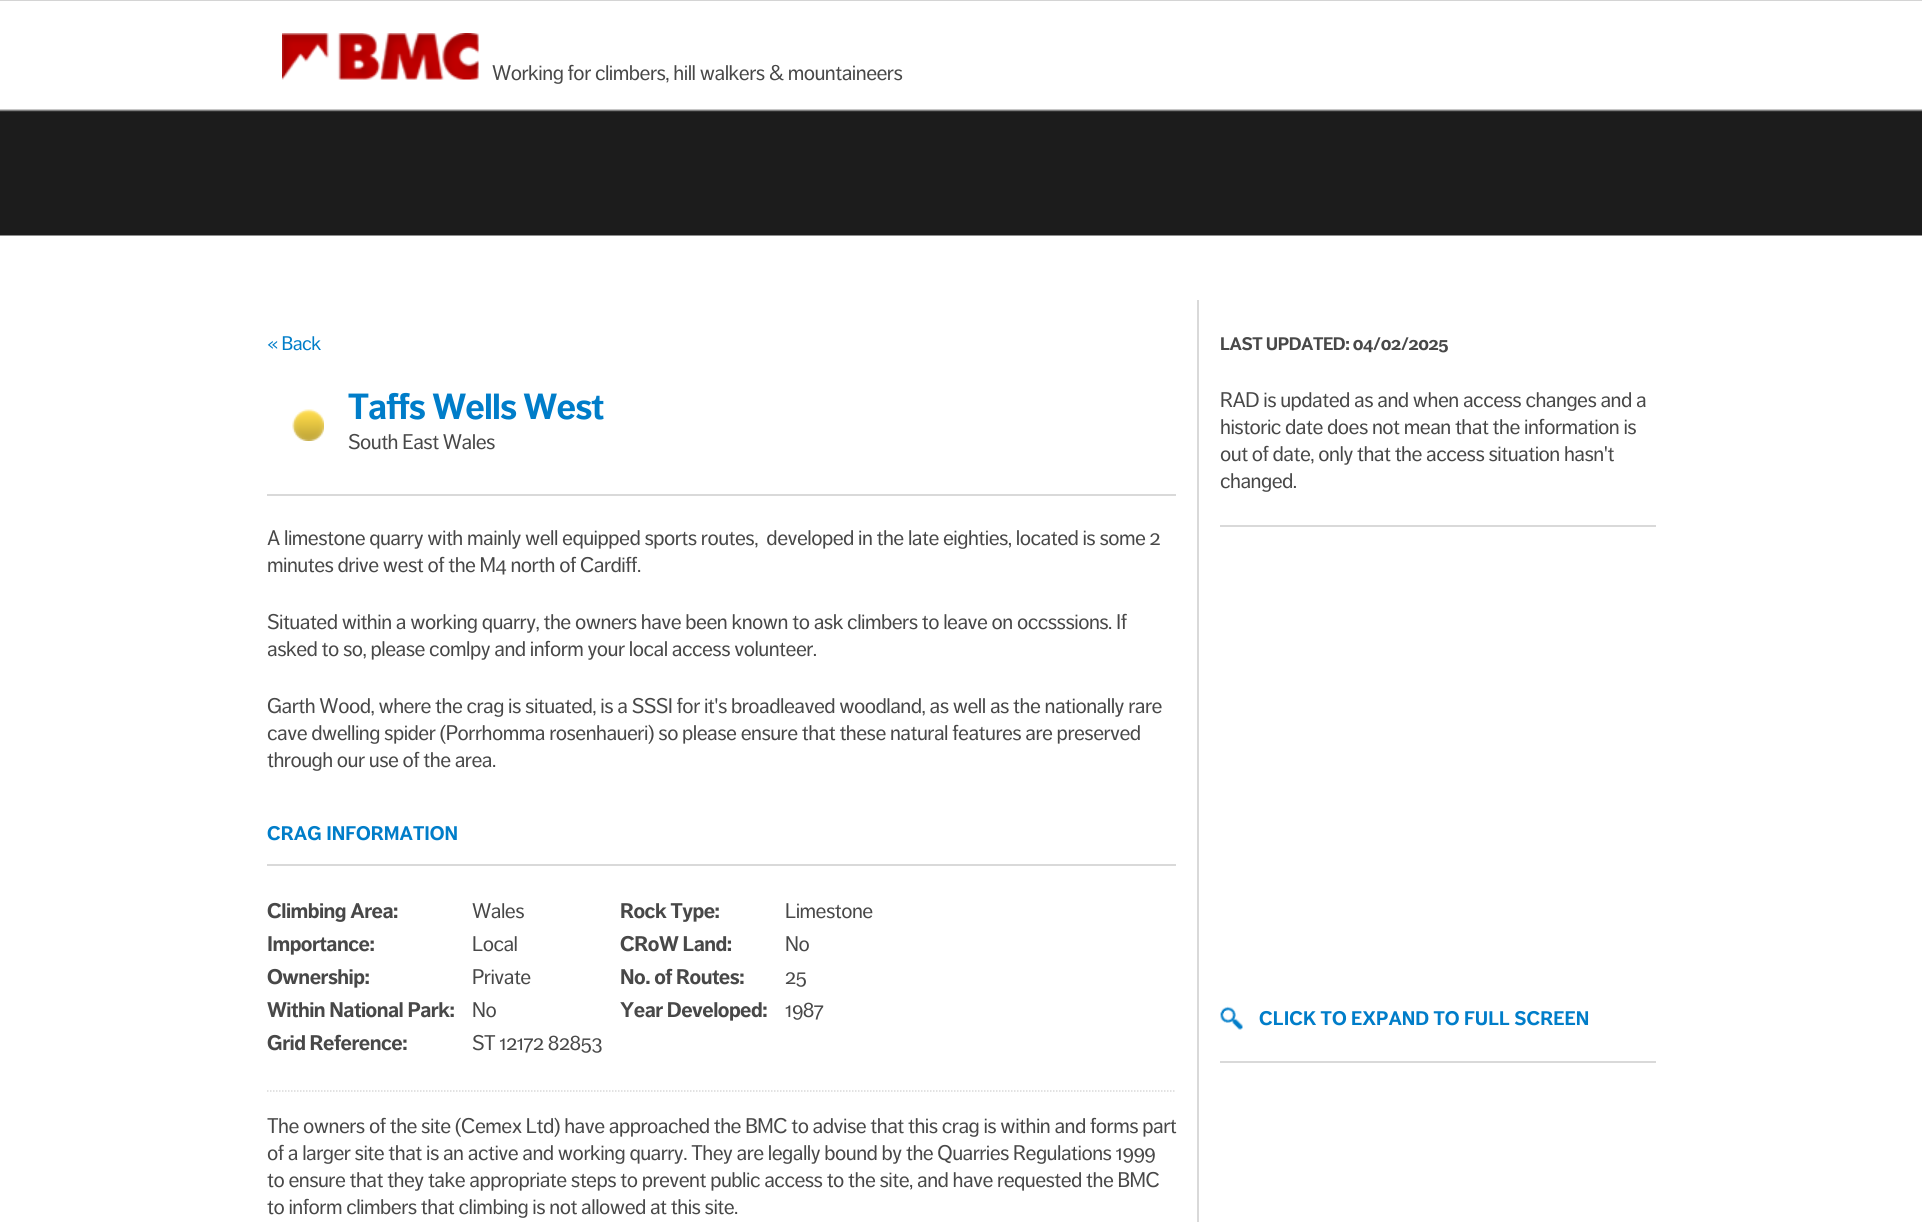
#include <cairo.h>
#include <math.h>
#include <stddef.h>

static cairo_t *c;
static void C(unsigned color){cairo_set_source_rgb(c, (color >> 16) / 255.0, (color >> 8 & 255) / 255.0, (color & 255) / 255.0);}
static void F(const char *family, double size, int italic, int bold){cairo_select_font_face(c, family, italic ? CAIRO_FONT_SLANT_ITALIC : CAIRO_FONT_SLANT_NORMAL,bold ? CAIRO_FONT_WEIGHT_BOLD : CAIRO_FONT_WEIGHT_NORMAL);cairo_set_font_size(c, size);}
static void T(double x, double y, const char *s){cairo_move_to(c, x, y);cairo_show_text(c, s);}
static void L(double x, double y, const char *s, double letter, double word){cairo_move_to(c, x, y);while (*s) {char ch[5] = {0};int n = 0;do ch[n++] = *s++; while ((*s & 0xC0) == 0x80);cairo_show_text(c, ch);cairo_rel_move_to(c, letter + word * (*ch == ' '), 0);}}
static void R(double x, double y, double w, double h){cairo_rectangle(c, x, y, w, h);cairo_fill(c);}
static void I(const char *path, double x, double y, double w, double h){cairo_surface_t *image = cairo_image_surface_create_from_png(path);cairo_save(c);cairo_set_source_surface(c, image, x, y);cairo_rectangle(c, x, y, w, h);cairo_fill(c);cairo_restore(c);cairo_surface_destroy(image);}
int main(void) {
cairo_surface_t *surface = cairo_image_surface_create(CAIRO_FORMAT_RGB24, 1922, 1222);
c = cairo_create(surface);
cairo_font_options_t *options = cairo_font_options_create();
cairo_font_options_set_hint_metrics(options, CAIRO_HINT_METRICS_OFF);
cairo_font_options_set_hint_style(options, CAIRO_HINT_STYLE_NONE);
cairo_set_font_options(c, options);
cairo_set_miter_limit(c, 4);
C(0xffffff);
cairo_paint(c);
I("1.png",0,0,1922,236);
I("2.png",282,33,197,47);
F("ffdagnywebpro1",21,0,0);
C(0x484848);
L(492,80,"Working for climbers, hill walkers & mountaineers",-.52,0);
C(0xd9d9d9);
R(1197,300,2,922);
F("ffdagnywebpro1",19.5,0,0);
C(0x007dc9);
L(267,350,"« Back",-.52,0);
C(0xd9d9d9);
R(267,494,909,2);
F("ffdagnywebpro1",36,0,1);
C(0x007dc9);
L(348,419,"Taffs Wells West",-.9,0);
I("3.png",292,409,32,32);
F("ffdagnywebpro1",21,0,0);
C(0x484848);
L(348,449,"South East Wales",-.52,0);
L(267,545,"A limestone quarry with mainly well equipped sports routes,  developed in the late eighties, located is some 2",-.52,0);
L(267,572,"minutes drive west of the M4 north of Cardiff.",-.52,0);
L(267,629,"Situated within a working quarry, the owners have been known to ask climbers to leave on occsssions. If",-.52,0);
L(267,656,"asked to so, please comlpy and inform your local access volunteer.",-.52,0);
L(267,713,"Garth Wood, where the crag is situated, is a SSSI for it's broadleaved woodland, as well as the nationally rare",-.52,0);
L(267,740,"cave dwelling spider (Porrhomma rosenhaueri) so please ensure that these natural features are preserved",-.52,0);
L(267,767,"through our use of the area.",-.52,0);
C(0xd9d9d9);
R(267,864,909,2);
F("ffdagnywebpro1",19.5,0,1);
C(0x007dc9);
T(267,840,"CRAG INFORMATION");
F("ffdagnywebpro1",21,0,1);
C(0x484848);
L(267,918,"Climbing Area:",-.52,0);
F("ffdagnywebpro1",21,0,0);
L(472,918,"Wales",-.52,0);
F("ffdagnywebpro1",21,0,1);
L(620,918,"Rock Type:",-.52,0);
F("ffdagnywebpro1",21,0,0);
L(785,918,"Limestone",-.52,0);
F("ffdagnywebpro1",21,0,1);
L(267,951,"Importance:",-.52,0);
F("ffdagnywebpro1",21,0,0);
L(472,951,"Local",-.52,0);
F("ffdagnywebpro1",21,0,1);
L(620,951,"CRoW Land:",-.52,0);
F("ffdagnywebpro1",21,0,0);
L(785,951,"No",-.52,0);
F("ffdagnywebpro1",21,0,1);
L(267,984,"Ownership:",-.52,0);
F("ffdagnywebpro1",21,0,0);
L(472,984,"Private",-.52,0);
F("ffdagnywebpro1",21,0,1);
L(620,984,"No. of Routes:",-.52,0);
F("ffdagnywebpro1",21,0,0);
L(785,984,"25",-.52,0);
F("ffdagnywebpro1",21,0,1);
L(267,1017,"Within National Park:",-.52,0);
F("ffdagnywebpro1",21,0,0);
L(472,1017,"No",-.52,0);
F("ffdagnywebpro1",21,0,1);
L(620,1017,"Year Developed:",-.52,0);
F("ffdagnywebpro1",21,0,0);
L(785,1017,"1987",-.52,0);
F("ffdagnywebpro1",21,0,1);
L(267,1050,"Grid Reference:",-.52,0);
F("ffdagnywebpro1",21,0,0);
L(472,1050,"ST 12172 82853",-.52,0);
cairo_new_path(c);
cairo_move_to(c,267,1091);
cairo_line_to(c,1176,1091);
C(0xd9d9d9);
cairo_set_line_width(c,1.5);
cairo_set_dash(c,(double[]){1.5,1.5},2,0);
cairo_stroke(c);
C(0x484848);
L(267,1133,"The owners of the site (Cemex Ltd) have approached the BMC to advise that this crag is within and forms part",-.52,0);
L(267,1160,"of a larger site that is an active and working quarry. They are legally bound by the Quarries Regulations 1999",-.52,0);
L(267,1187,"to ensure that they take appropriate steps to prevent public access to the site, and have requested the BMC",-.52,0);
L(267,1214,"to inform climbers that climbing is not allowed at this site.",-.52,0);
F("ffdagnywebpro1",18,0,1);
L(1220,350,"LAST UPDATED: 04/02/2025",-.45,0);
F("ffdagnywebpro1",21,0,0);
L(1220,407,"RAD is updated as and when access changes and a",-.52,0);
L(1220,434,"historic date does not mean that the information is",-.52,0);
L(1220,461,"out of date, only that the access situation hasn't",-.52,0);
L(1220,488,"changed.",-.52,0);
C(0xd9d9d9);
R(1220,525,436,2);
I("4.png",1220,1006,23,24);
F("ffdagnywebpro1",19.5,0,1);
C(0x007dc9);
T(1259,1025,"CLICK TO EXPAND TO FULL SCREEN");
C(0xd9d9d9);
R(1220,1061,436,2);
cairo_surface_write_to_png(surface, "o.png");
cairo_font_options_destroy(options);
cairo_destroy(c);
cairo_surface_destroy(surface);
return 0;
}
